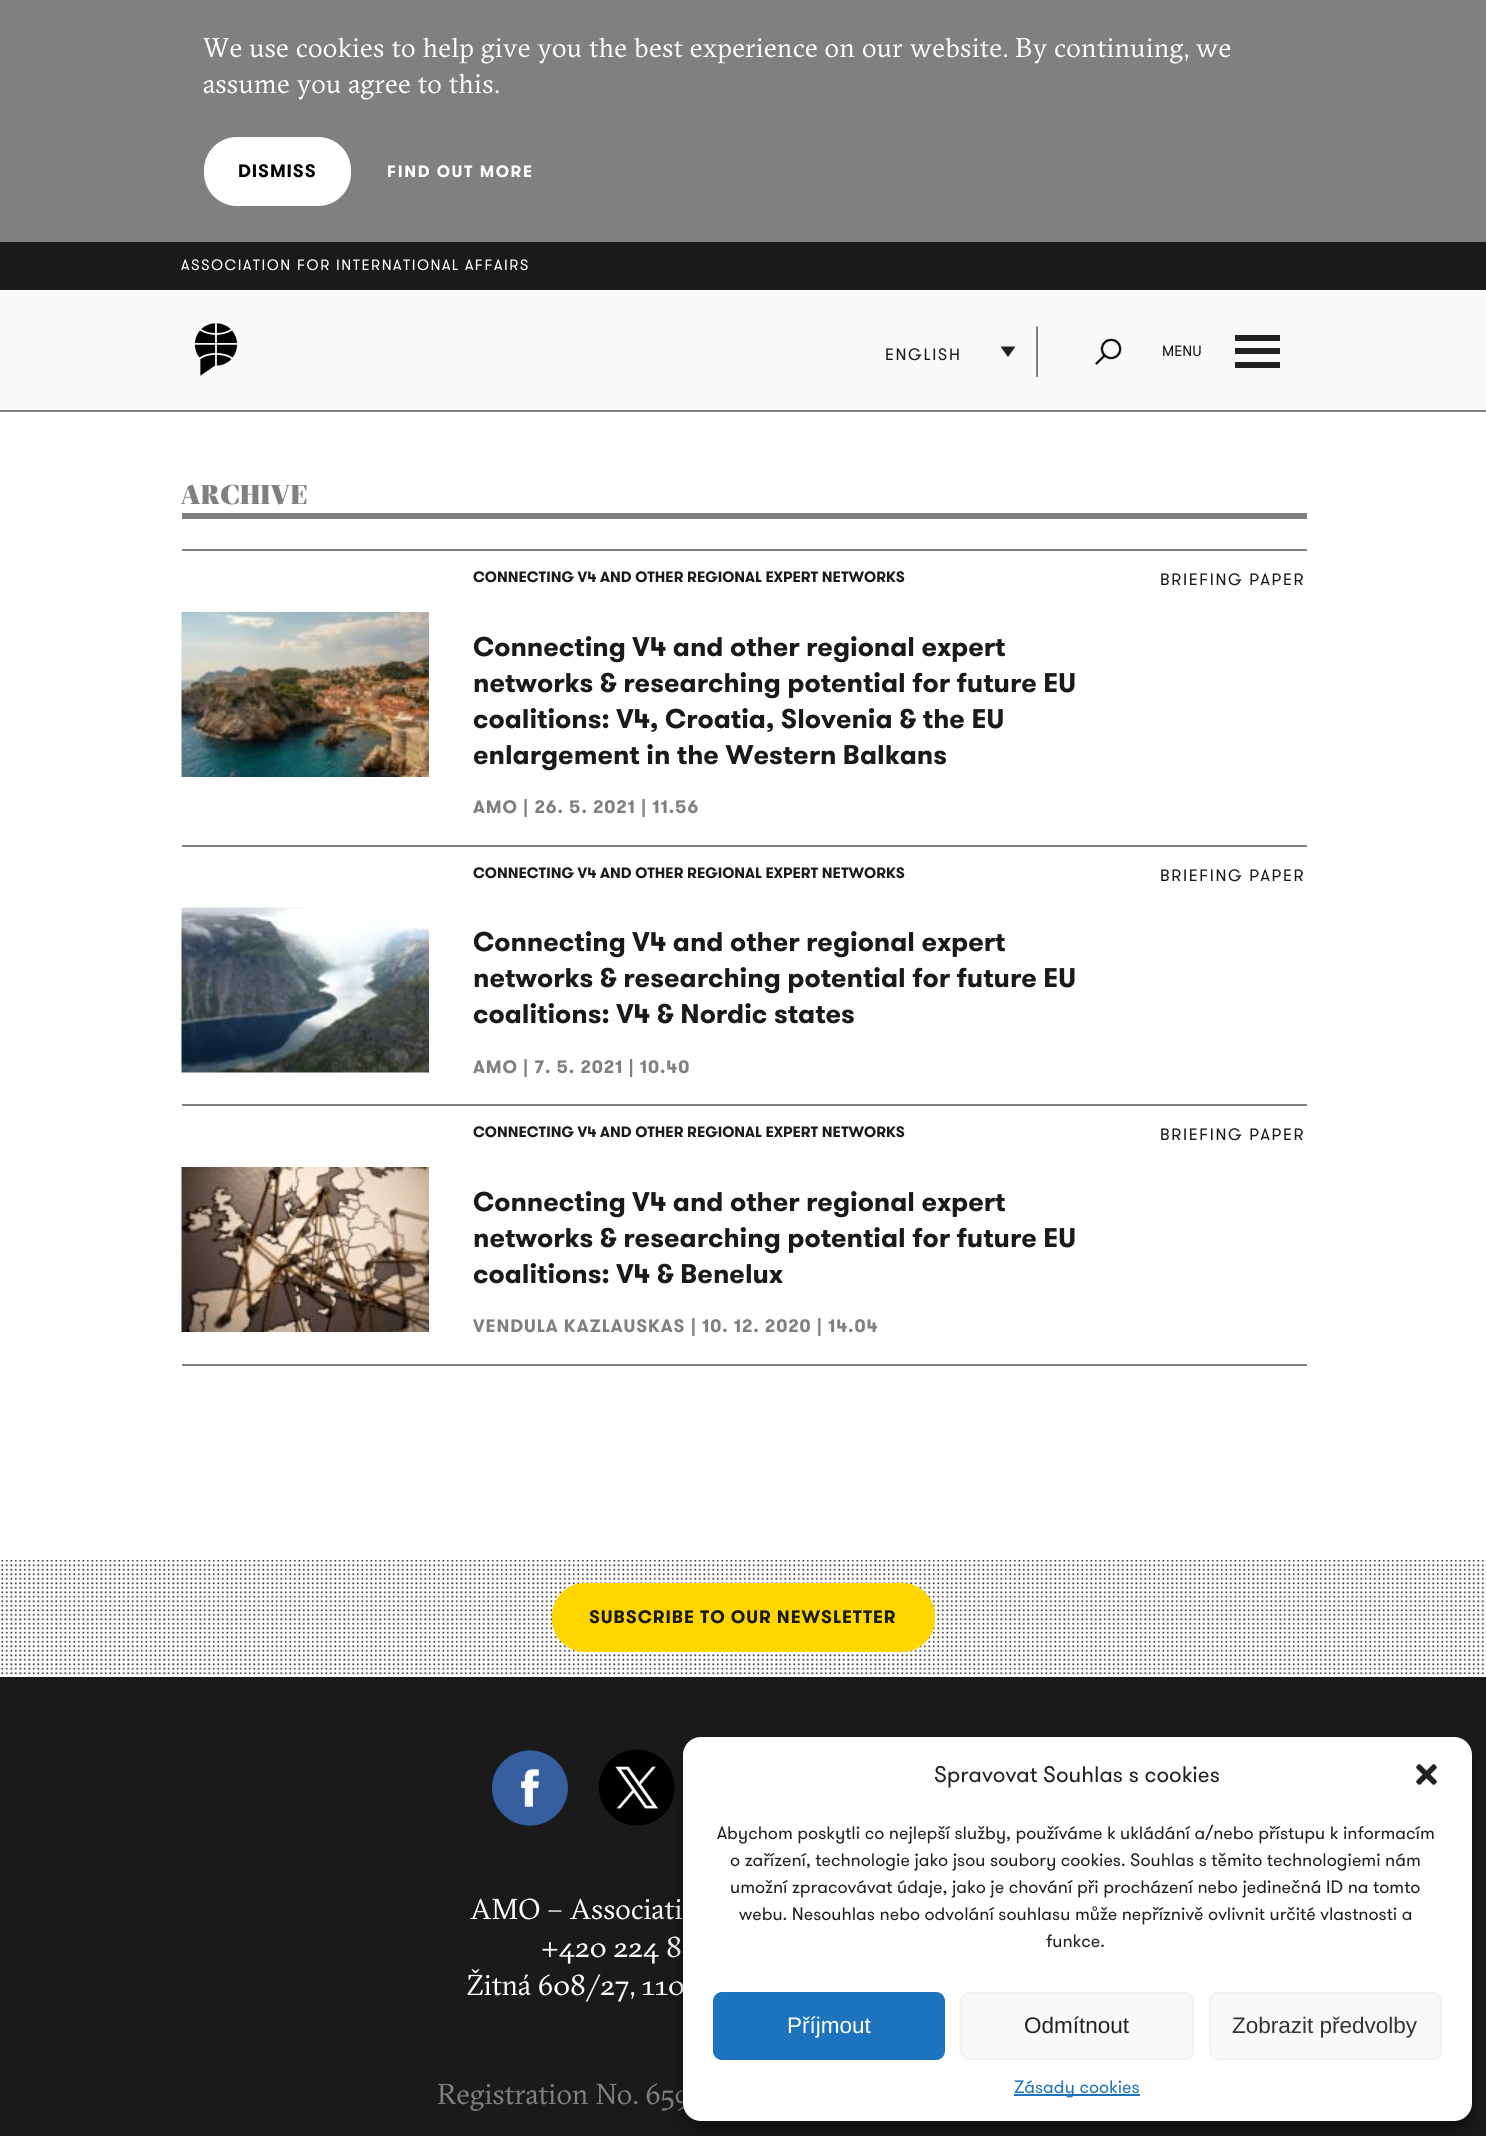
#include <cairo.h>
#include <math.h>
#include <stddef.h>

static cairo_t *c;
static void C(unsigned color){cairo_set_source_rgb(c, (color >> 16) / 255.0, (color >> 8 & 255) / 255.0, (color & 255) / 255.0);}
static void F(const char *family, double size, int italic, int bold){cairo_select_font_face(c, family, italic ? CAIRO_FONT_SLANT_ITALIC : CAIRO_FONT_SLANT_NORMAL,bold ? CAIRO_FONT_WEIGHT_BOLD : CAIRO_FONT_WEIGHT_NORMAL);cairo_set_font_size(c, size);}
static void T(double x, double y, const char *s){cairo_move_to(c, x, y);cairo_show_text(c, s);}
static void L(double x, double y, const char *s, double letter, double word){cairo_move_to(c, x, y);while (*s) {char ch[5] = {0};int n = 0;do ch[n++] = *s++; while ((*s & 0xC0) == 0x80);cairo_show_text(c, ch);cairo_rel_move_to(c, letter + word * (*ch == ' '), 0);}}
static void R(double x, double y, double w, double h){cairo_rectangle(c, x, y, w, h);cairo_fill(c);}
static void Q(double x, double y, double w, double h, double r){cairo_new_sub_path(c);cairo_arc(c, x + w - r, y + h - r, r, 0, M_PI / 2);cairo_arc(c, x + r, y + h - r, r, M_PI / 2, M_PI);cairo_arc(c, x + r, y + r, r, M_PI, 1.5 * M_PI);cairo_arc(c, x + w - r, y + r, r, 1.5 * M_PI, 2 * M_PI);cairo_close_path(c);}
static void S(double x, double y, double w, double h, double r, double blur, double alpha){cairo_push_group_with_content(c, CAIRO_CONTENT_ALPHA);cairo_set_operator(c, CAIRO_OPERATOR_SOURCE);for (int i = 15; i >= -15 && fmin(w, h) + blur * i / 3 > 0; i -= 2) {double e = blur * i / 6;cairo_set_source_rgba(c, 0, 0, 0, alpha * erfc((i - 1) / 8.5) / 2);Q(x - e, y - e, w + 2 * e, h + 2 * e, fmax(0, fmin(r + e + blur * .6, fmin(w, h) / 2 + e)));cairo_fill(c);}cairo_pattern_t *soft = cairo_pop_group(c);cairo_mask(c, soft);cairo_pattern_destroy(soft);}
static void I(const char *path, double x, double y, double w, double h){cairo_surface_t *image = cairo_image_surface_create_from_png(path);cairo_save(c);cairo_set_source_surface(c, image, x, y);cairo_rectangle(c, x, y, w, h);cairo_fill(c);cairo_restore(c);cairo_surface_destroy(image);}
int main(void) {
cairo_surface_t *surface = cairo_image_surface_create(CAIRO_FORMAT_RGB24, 1486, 2136);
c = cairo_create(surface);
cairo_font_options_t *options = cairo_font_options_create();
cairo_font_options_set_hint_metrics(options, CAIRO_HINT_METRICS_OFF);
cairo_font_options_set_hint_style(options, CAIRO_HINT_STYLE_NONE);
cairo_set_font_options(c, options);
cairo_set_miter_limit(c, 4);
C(0xffffff);
cairo_paint(c);
C(0x808080);
R(0,0,1486,242);
F("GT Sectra",27,0,0);
C(0xffffff);
L(203,57,"We use cookies to help give you the best experience on our website. By continuing, we",.27,0);
L(203,93,"assume you agree to this.",.27,0);
Q(204,137,147,69,33);
cairo_fill(c);
F("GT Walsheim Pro",18,0,1);
C(0x000000);
L(238,177,"DISMISS",.9,0);
F("GT Walsheim Pro",16.5,0,1);
C(0xffffff);
L(387,177,"FIND OUT MORE",1.6,0);
C(0x1a1a1a);
R(0,242,1486,48);
F("GT Walsheim Pro",15,0,0);
C(0xffffff);
L(181,270,"ASSOCIATION FOR INTERNATIONAL AFFAIRS",1.5,0);
C(0xfafafa);
R(0,290,1486,120);
C(0x808080);
R(0,410,1486,2);
I("1.png",194,323,44,53);
cairo_save(c);
cairo_rectangle(c,809,326,229,51);
cairo_clip(c);
cairo_new_path(c);
cairo_move_to(c,1038,326);
cairo_line_to(c,1038,380);
cairo_line_to(c,1036,378);
cairo_line_to(c,1036,327);
cairo_close_path(c);
cairo_fill(c);
cairo_restore(c);
F("GT Walsheim Pro",16.5,0,0);
C(0x1a1a1a);
L(885,360,"ENGLISH",1.6,0);
C(0x202121);
cairo_new_path(c);
cairo_move_to(c,1000.5,346.5);
cairo_line_to(c,1015.5,346.5);
cairo_line_to(c,1008,357);
cairo_close_path(c);
cairo_fill(c);
I("2.png",1095,338,27,27);
F("GT Walsheim Pro",15,0,0);
C(0x1a1a1a);
T(1162,356,"MENU");
C(0x202121);
R(1235,335,45,6);
R(1235,348,45,6);
R(1235,362,45,6);
C(0x808080);
R(182,513,1125,6);
F("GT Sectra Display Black",27,0,0);
L(181,504,"ARCHIVE",.75,0);
R(182,549,1125,2);
R(182,845,1125,2);
F("GT Walsheim Pro",15,0,1);
C(0x1a1a1a);
T(473,582,"CONNECTING V4 AND OTHER REGIONAL EXPERT NETWORKS");
F("GT Walsheim Pro",16.5,0,0);
L(1160,585,"BRIEFING PAPER",1.6,0);
I("3.png",181,612,248,165);
F("GT Walsheim Pro",27,0,1);
T(473,656,"Connecting V4 and other regional expert");
T(473,692,"networks & researching potential for future EU");
T(473,728,"coalitions: V4, Croatia, Slovenia & the EU");
T(473,764,"enlargement in the Western Balkans");
F("GT Walsheim Pro",18,0,1);
C(0x808080);
L(473,813,"AMO | 26. 5. 2021 | 11.56",.9,0);
R(182,1104,1125,2);
F("GT Walsheim Pro",15,0,1);
C(0x1a1a1a);
T(473,878,"CONNECTING V4 AND OTHER REGIONAL EXPERT NETWORKS");
F("GT Walsheim Pro",16.5,0,0);
L(1160,881,"BRIEFING PAPER",1.6,0);
I("4.png",181,907,248,166);
F("GT Walsheim Pro",27,0,1);
T(473,951,"Connecting V4 and other regional expert");
T(473,987,"networks & researching potential for future EU");
T(473,1023,"coalitions: V4 & Nordic states");
F("GT Walsheim Pro",18,0,1);
C(0x808080);
L(473,1073,"AMO | 7. 5. 2021 | 10.40",.9,0);
R(182,1364,1125,2);
F("GT Walsheim Pro",15,0,1);
C(0x1a1a1a);
T(473,1137,"CONNECTING V4 AND OTHER REGIONAL EXPERT NETWORKS");
F("GT Walsheim Pro",16.5,0,0);
L(1160,1140,"BRIEFING PAPER",1.6,0);
I("5.png",181,1167,248,165);
F("GT Walsheim Pro",27,0,1);
T(473,1211,"Connecting V4 and other regional expert");
T(473,1247,"networks & researching potential for future EU");
T(473,1283,"coalitions: V4 & Benelux");
F("GT Walsheim Pro",18,0,1);
C(0x808080);
L(473,1332,"VENDULA KAZLAUSKAS | 10. 12. 2020 | 14.04",.9,0);
I("6.png",1,1560,1483,114);
C(0xffd600);
Q(552,1583,383,69,33);
cairo_fill(c);
C(0x1a1a1a);
L(589,1623,"SUBSCRIBE TO OUR NEWSLETTER",.9,0);
R(0,1677,1486,459);
I("7.png",492,1750,77,76);
I("8.png",598,1749,77,77);
F("GT Sectra",28.75,0,0);
C(0xffffff);
T(470,1919,"AMO – Associati");
T(541,1957,"+420 224 8");
T(467,1995,"Žitná 608/27, 110");
C(0x808080);
T(437,2104,"Registration No. 659");
C(0x000000);
S(683,1746,789,384,18,4.5,.23);
S(683,1752,789,384,18,15,.19);
C(0xffffff);
Q(683,1737,789,384,18);
cairo_fill(c);
F("GT Walsheim Pro",22.5,0,0);
C(0x222222);
T(934,1782,"Spravovat Souhlas s cookies");
I("9.png",1416,1764,21,21);
F("GT Walsheim Pro",18,0,0);
T(717,1839,"Abychom poskytli co nejlepší služby, používáme k ukládání a/nebo přístupu k informacím");
T(730,1866,"o zařízení, technologie jako jsou soubory cookies. Souhlas s těmito technologiemi nám");
T(730,1893,"umožní zpracovávat údaje, jako je chování při procházení nebo jedinečná ID na tomto");
T(739,1920,"webu. Nesouhlas nebo odvolání souhlasu může nepříznivě ovlivnit určité vlastnosti a");
T(1046,1947,"funkce.");
C(0x1e73be);
Q(714,1993,230,66,8);
cairo_fill_preserve(c);
cairo_stroke(c);
F("Liberation Sans",22.5,0,0);
C(0xffffff);
T(787,2033,"Příjmout");
C(0xf9f9f9);
Q(961,1993,232,66,8);
cairo_fill_preserve(c);
C(0xf2f2f2);
cairo_stroke(c);
C(0x222222);
T(1024,2033,"Odmítnout");
C(0xf9f9f9);
Q(1210,1993,231,66,8);
cairo_fill_preserve(c);
C(0xf2f2f2);
cairo_stroke(c);
C(0x333333);
T(1232,2033,"Zobrazit předvolby");
C(0x1e73be);
R(1014,2094,126,2);
F("GT Walsheim Pro",18,0,0);
T(1014,2093,"Zásady cookies");
cairo_surface_write_to_png(surface, "o.png");
cairo_font_options_destroy(options);
cairo_destroy(c);
cairo_surface_destroy(surface);
return 0;
}
